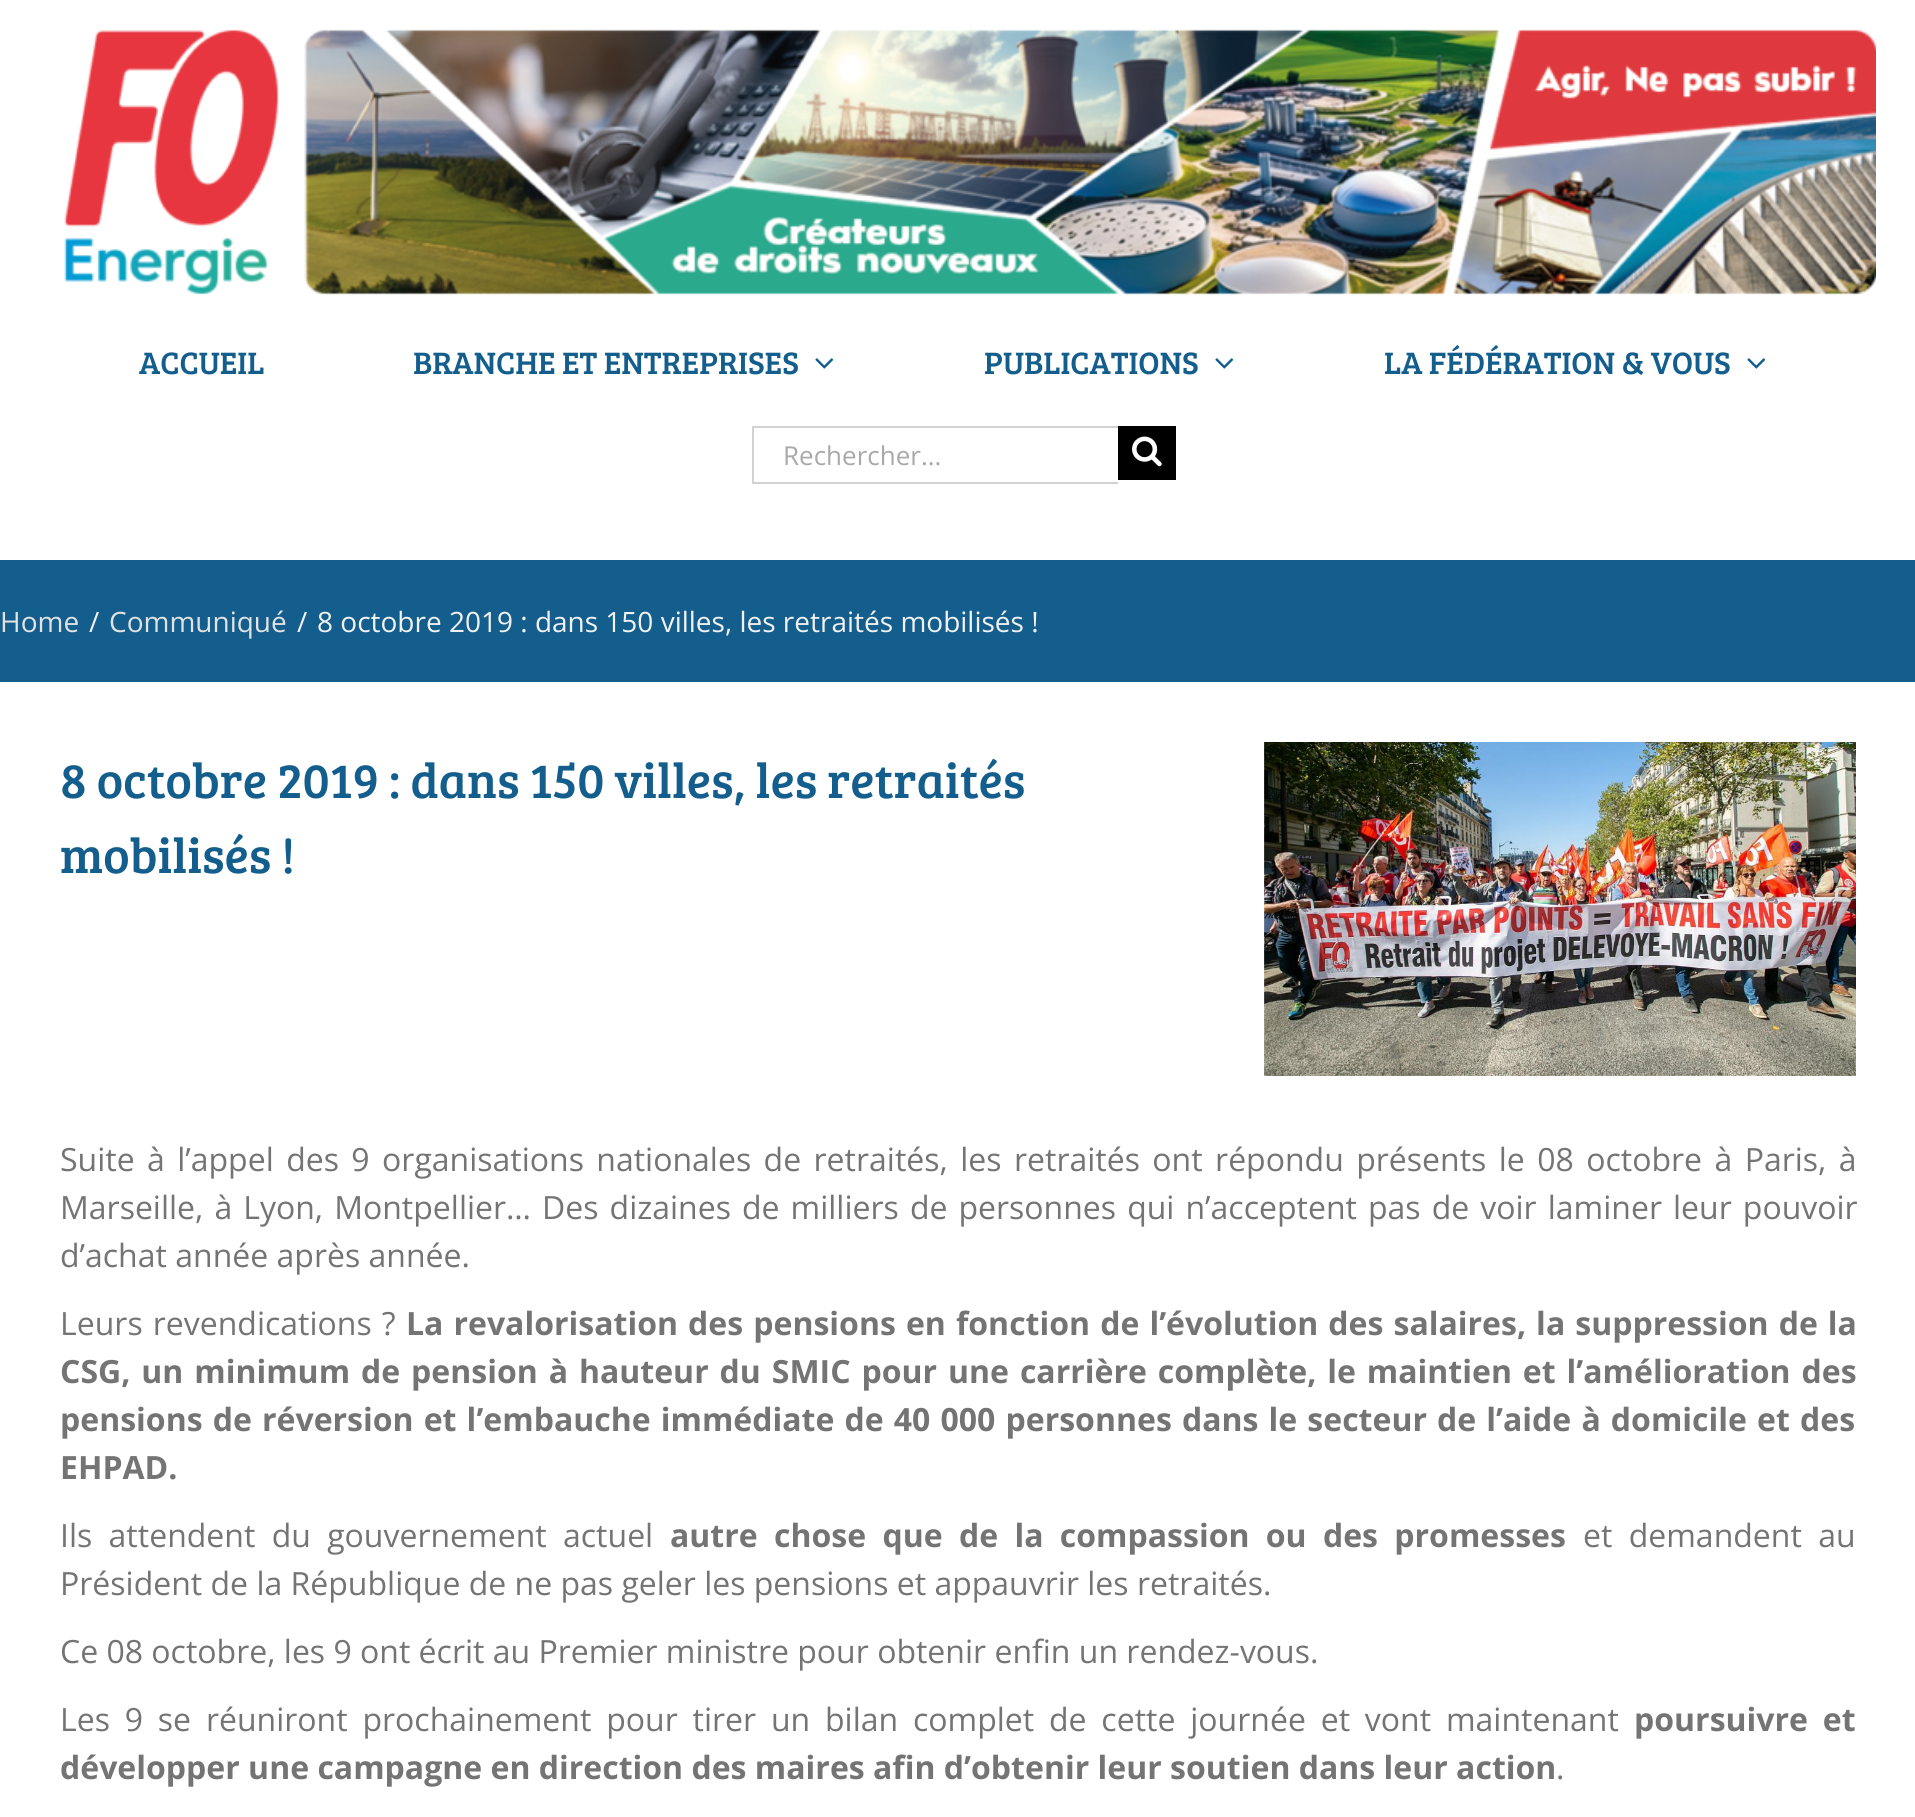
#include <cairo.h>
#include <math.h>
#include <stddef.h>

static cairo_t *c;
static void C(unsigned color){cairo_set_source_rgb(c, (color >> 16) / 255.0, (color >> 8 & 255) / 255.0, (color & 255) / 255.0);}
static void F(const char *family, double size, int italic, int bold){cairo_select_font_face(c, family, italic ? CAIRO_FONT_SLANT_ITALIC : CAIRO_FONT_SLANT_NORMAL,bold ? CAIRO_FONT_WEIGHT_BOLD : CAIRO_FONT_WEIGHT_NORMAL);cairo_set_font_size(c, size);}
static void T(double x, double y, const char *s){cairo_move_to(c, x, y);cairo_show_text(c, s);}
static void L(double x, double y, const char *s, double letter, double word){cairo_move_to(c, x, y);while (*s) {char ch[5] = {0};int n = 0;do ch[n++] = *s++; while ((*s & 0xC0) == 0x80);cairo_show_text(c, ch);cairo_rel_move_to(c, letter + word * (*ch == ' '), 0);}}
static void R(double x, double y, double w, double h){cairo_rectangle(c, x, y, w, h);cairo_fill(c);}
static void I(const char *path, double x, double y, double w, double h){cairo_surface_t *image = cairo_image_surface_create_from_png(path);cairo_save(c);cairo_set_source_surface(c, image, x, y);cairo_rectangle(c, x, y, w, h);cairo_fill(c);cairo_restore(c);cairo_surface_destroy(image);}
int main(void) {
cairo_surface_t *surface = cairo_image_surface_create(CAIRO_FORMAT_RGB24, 1915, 1817);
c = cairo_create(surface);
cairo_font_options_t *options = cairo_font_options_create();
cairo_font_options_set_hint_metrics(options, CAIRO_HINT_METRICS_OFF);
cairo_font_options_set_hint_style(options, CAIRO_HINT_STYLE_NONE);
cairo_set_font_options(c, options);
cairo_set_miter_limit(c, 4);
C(0xffffff);
cairo_paint(c);
I("1.png",64,29,1812,266);
F("Bree Serif",32,0,0);
C(0x135e8d);
T(139,374,"ACCUEIL");
T(413,374,"BRANCHE ET ENTREPRISES");
I("2.png",815,358,19,11);
T(984,374,"PUBLICATIONS");
I("2.png",1215,358,19,11);
T(1384,374,"LA FÉDÉRATION & VOUS");
I("2.png",1747,358,19,11);
C(0xd2d2d2);
R(752,426,366,2);
R(752,482,366,2);
R(752,426,2,58);
F("Open Sans",26,0,0);
C(0xaaa9a9);
T(783,465,"Rechercher...");
C(0x000000);
R(1118,426,58,54);
I("3.png",1132,436,30,31);
C(0x135e8d);
R(0,560,1915,122);
F("Open Sans",28,0,0);
C(0xe2e2e2);
T(0,632,"Home");
C(0xf2f2f2);
T(89,632,"/");
C(0xe2e2e2);
T(109,632,"Communiqué");
C(0xf2f2f2);
T(297,632,"/");
T(317,632,"8 octobre 2019 : dans 150 villes, les retraités mobilisés !");
F("Bree Serif",50,0,0);
C(0x135e8d);
T(60,798,"8 octobre 2019 : dans 150 villes, les retraités");
T(60,873,"mobilisés !");
I("4.png",1264,742,592,334);
F("Open Sans",32,0,0);
C(0x747474);
L(60,1171,"Suite à l’appel des 9 organisations nationales de retraités, les retraités ont répondu présents le 08 octobre à Paris, à",0,4.1);
L(60,1219,"Marseille, à Lyon, Montpellier… Des dizaines de milliers de personnes qui n’acceptent pas de voir laminer leur pouvoir",0,2.75);
T(60,1267,"d’achat année après année.");
L(60,1335,"Leurs revendications ?",0,1.75);
F("Open Sans",32,0,1);
L(406,1335,"La revalorisation des pensions en fonction de l’évolution des salaires, la suppression de la",0,1.75);
L(60,1383,"CSG, un minimum de pension à hauteur du SMIC pour une carrière complète, le maintien et l’amélioration des",0,2.6);
L(60,1431,"pensions de réversion et l’embauche immédiate de 40 000 personnes dans le secteur de l’aide à domicile et des",0,1.8);
T(60,1479,"EHPAD.");
F("Open Sans",32,0,0);
L(60,1547,"Ils attendent du gouvernement actuel",0,8);
F("Open Sans",32,0,1);
L(670,1547,"autre chose que de la compassion ou des promesses",0,8);
F("Open Sans",32,0,0);
L(1583,1547,"et demandent au",0,8);
T(60,1595,"Président de la République de ne pas geler les pensions et appauvrir les retraités.");
T(60,1663,"Ce 08 octobre, les 9 ont écrit au Premier ministre pour obtenir enfin un rendez-vous.");
L(60,1731,"Les 9 se réuniront prochainement pour tirer un bilan complet de cette journée et vont maintenant",0,6.5);
F("Open Sans",32,0,1);
L(1634,1731,"poursuivre et",0,6.5);
T(60,1779,"développer une campagne en direction des maires afin d’obtenir leur soutien dans leur action");
F("Open Sans",32,0,0);
T(1556,1779,".");
cairo_surface_write_to_png(surface, "o.png");
cairo_font_options_destroy(options);
cairo_destroy(c);
cairo_surface_destroy(surface);
return 0;
}
